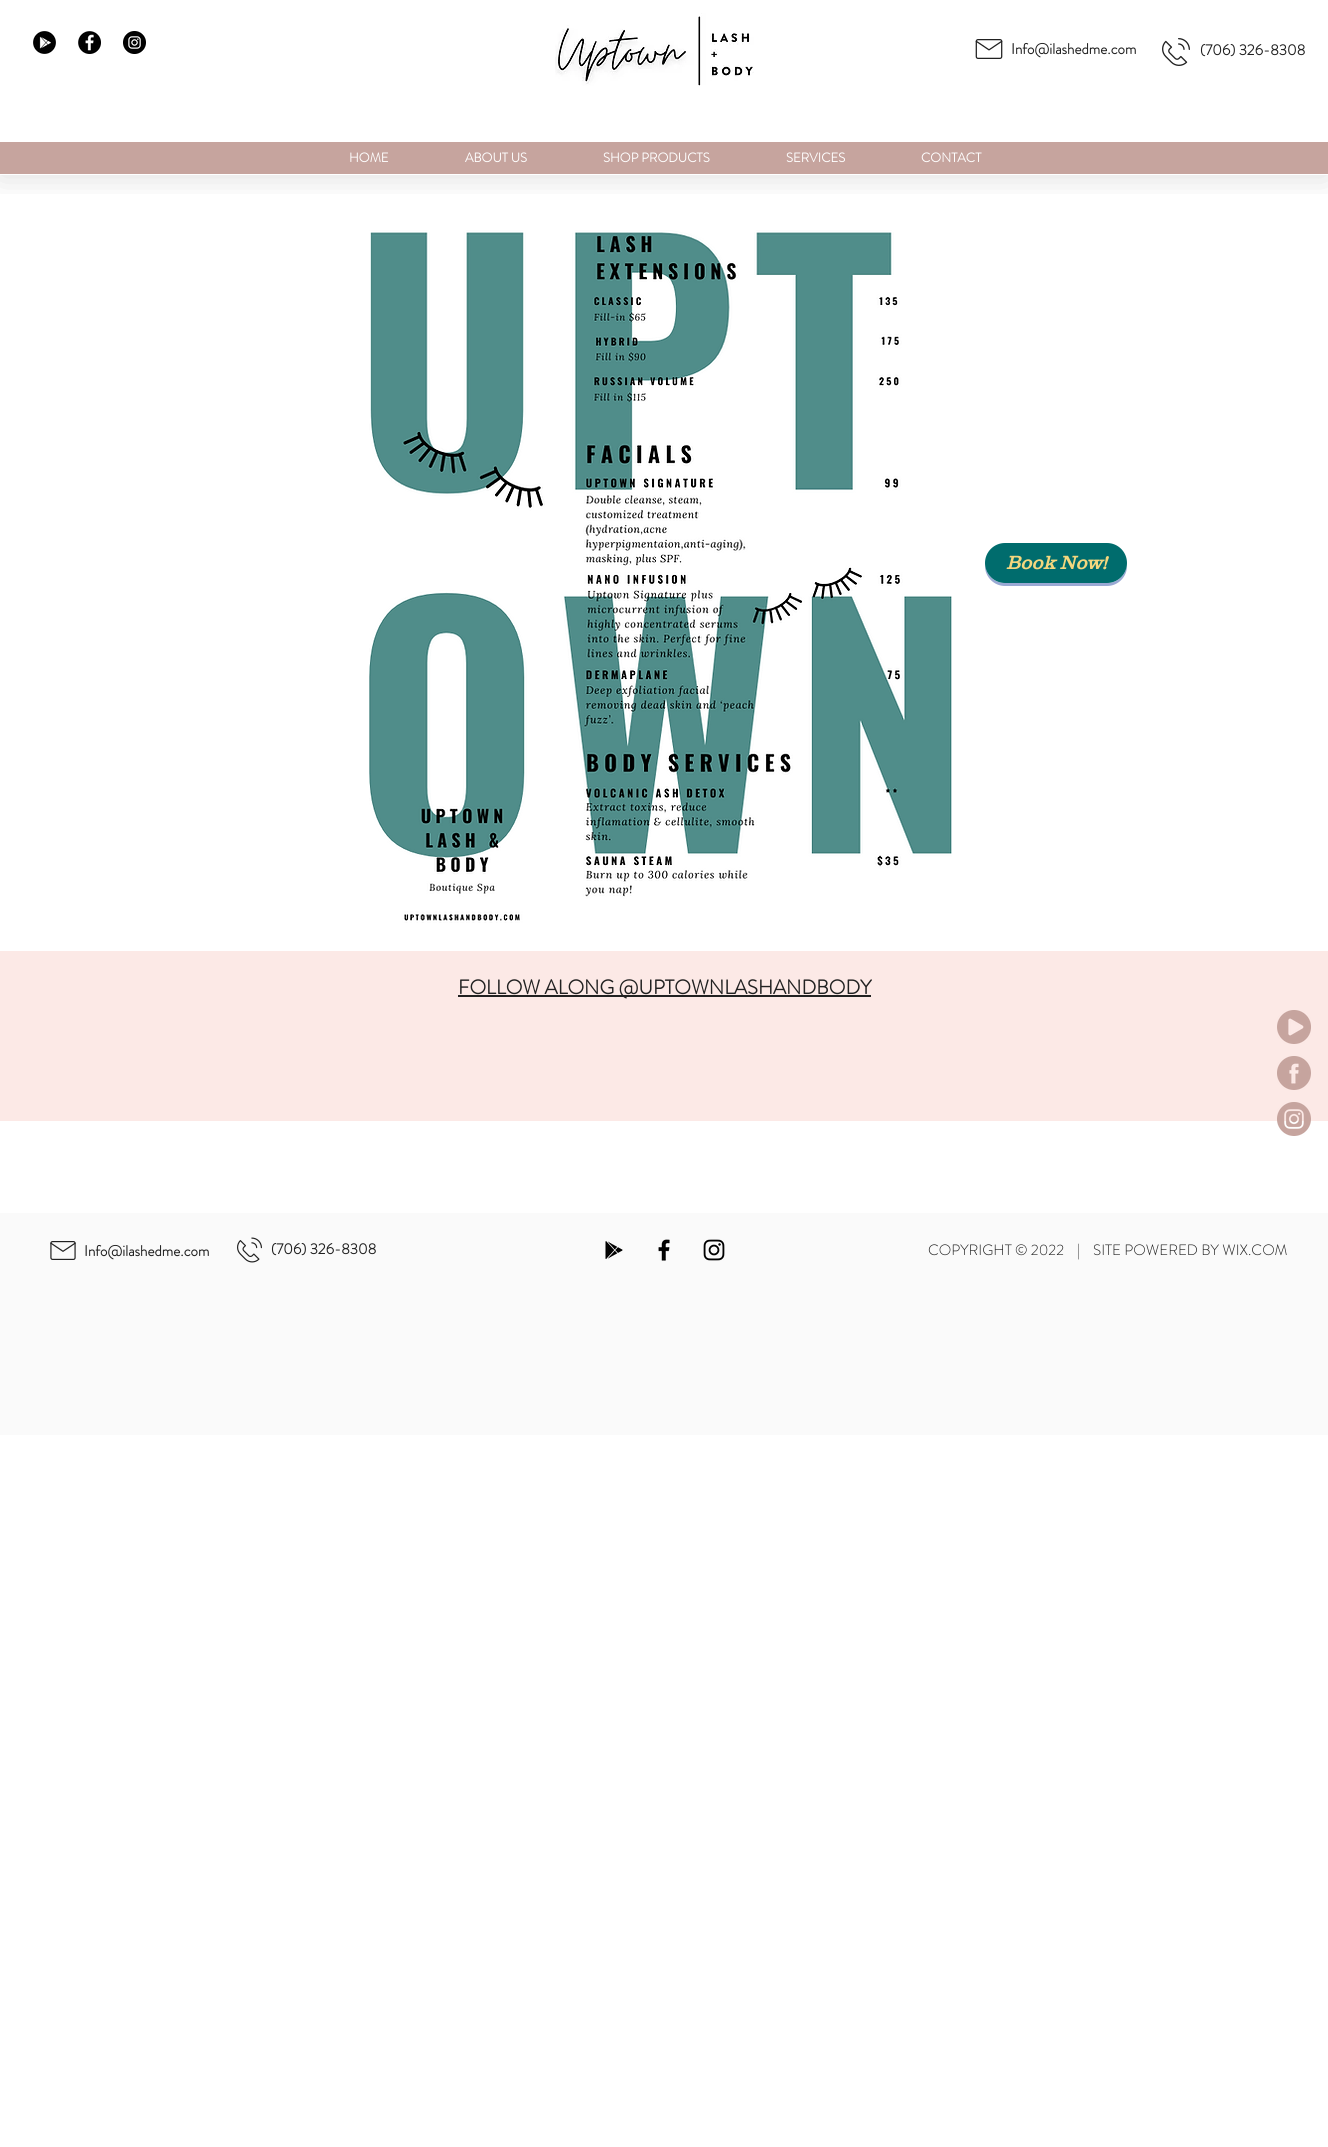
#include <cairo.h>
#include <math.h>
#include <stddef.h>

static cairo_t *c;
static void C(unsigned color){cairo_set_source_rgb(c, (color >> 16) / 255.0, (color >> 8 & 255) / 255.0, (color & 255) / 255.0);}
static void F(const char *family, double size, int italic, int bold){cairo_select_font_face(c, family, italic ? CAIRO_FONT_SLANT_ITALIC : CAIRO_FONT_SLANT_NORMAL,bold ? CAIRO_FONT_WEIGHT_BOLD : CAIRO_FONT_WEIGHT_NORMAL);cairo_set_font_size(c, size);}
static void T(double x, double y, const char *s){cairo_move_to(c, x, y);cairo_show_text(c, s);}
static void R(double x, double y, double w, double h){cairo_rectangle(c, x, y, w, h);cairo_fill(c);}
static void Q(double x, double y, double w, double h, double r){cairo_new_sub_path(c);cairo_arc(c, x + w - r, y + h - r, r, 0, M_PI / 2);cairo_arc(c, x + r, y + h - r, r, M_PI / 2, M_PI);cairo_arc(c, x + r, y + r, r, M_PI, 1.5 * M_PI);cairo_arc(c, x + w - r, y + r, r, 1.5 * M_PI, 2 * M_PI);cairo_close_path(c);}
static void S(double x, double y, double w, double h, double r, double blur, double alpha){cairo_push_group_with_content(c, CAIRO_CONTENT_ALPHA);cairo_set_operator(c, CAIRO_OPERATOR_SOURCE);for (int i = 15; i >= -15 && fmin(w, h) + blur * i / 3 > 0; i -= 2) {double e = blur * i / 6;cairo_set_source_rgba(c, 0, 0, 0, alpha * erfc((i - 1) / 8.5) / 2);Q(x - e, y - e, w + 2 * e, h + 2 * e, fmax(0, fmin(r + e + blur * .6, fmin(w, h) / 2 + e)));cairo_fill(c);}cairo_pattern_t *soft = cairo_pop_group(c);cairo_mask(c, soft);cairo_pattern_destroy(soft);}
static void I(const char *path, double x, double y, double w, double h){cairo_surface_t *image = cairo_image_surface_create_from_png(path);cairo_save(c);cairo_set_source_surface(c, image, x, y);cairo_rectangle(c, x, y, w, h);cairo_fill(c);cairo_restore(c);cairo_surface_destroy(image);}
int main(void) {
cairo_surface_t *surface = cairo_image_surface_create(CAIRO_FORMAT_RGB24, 1328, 2147);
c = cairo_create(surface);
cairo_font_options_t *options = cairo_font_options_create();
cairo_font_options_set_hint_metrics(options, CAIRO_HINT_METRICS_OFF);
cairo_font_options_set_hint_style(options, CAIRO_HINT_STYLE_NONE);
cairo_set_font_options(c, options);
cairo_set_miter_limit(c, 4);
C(0xffffff);
cairo_paint(c);
cairo_save(c);
cairo_rectangle(c,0,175,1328,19);
cairo_clip(c);
C(0x000000);
S(0,1,1328,175,0,16.5,.14);
cairo_restore(c);
I("1.png",33,31,23,23);
I("2.png",78,31,23,23);
I("3.png",123,31,23,23);
I("4.png",555,13,199,73);
I("5.png",975,39,28,20);
F("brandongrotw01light",15,0,1);
C(0x212121);
T(1011,54,"Info@ilashedme.com");
I("6.png",1162,38,28,28);
T(1200,55,"(706) 326-8308");
C(0xc6a49e);
R(0,142,1328,32);
F("brandongrotw01light",13,0,1);
C(0xffffff);
T(349,162,"HOME");
T(465,162,"ABOUT US");
T(603,162,"SHOP PRODUCTS");
T(786,162,"SERVICES");
T(921,162,"CONTACT");
I("7.png",369,230,583,693);
C(0x9aa9d4);
cairo_new_path(c);
cairo_move_to(c,985,564);
cairo_line_to(c,985,566);
cairo_curve_to(c,985,577,994,586,1005,586);
cairo_line_to(c,1107,586);
cairo_curve_to(c,1118,586,1127,577,1127,566);
cairo_line_to(c,1127,564);
cairo_curve_to(c,1126,575,1118,583,1107,583);
cairo_line_to(c,1005,583);
cairo_curve_to(c,994,583,986,575,985,564);
cairo_close_path(c);
cairo_fill(c);
C(0x006c6d);
Q(985,543,142,40,20);
cairo_fill(c);
F("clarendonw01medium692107",19,1,1);
C(0xf4d77e);
T(1006,569,"Book Now!");
C(0xfce9e6);
R(0,951,1328,170);
C(0x212121);
R(458,995,413,2);
F("brandongrotw01light",20,0,1);
T(458,994,"FOLLOW ALONG @UPTOWNLASHANDBODY");
C(0xfafafa);
R(0,1213,1328,222);
I("8.png",50,1241,26,19);
F("brandongrotw01light",15,0,1);
C(0x212121);
T(84,1256,"Info@ilashedme.com");
I("9.png",237,1237,25,26);
T(271,1254,"(706) 326-8308");
I("10.png",605,1241,18,18);
I("11.png",658,1239,12,22);
I("12.png",703,1239,22,22);
F("brandongrotw01light Light",15,0,0);
T(928,1255,"COPYRIGHT © 2022    |    SITE POWERED BY WIX.COM");
I("13.png",1277,1010,34,34);
I("14.png",1277,1056,34,34);
I("15.png",1277,1102,34,34);
cairo_surface_write_to_png(surface, "o.png");
cairo_font_options_destroy(options);
cairo_destroy(c);
cairo_surface_destroy(surface);
return 0;
}
